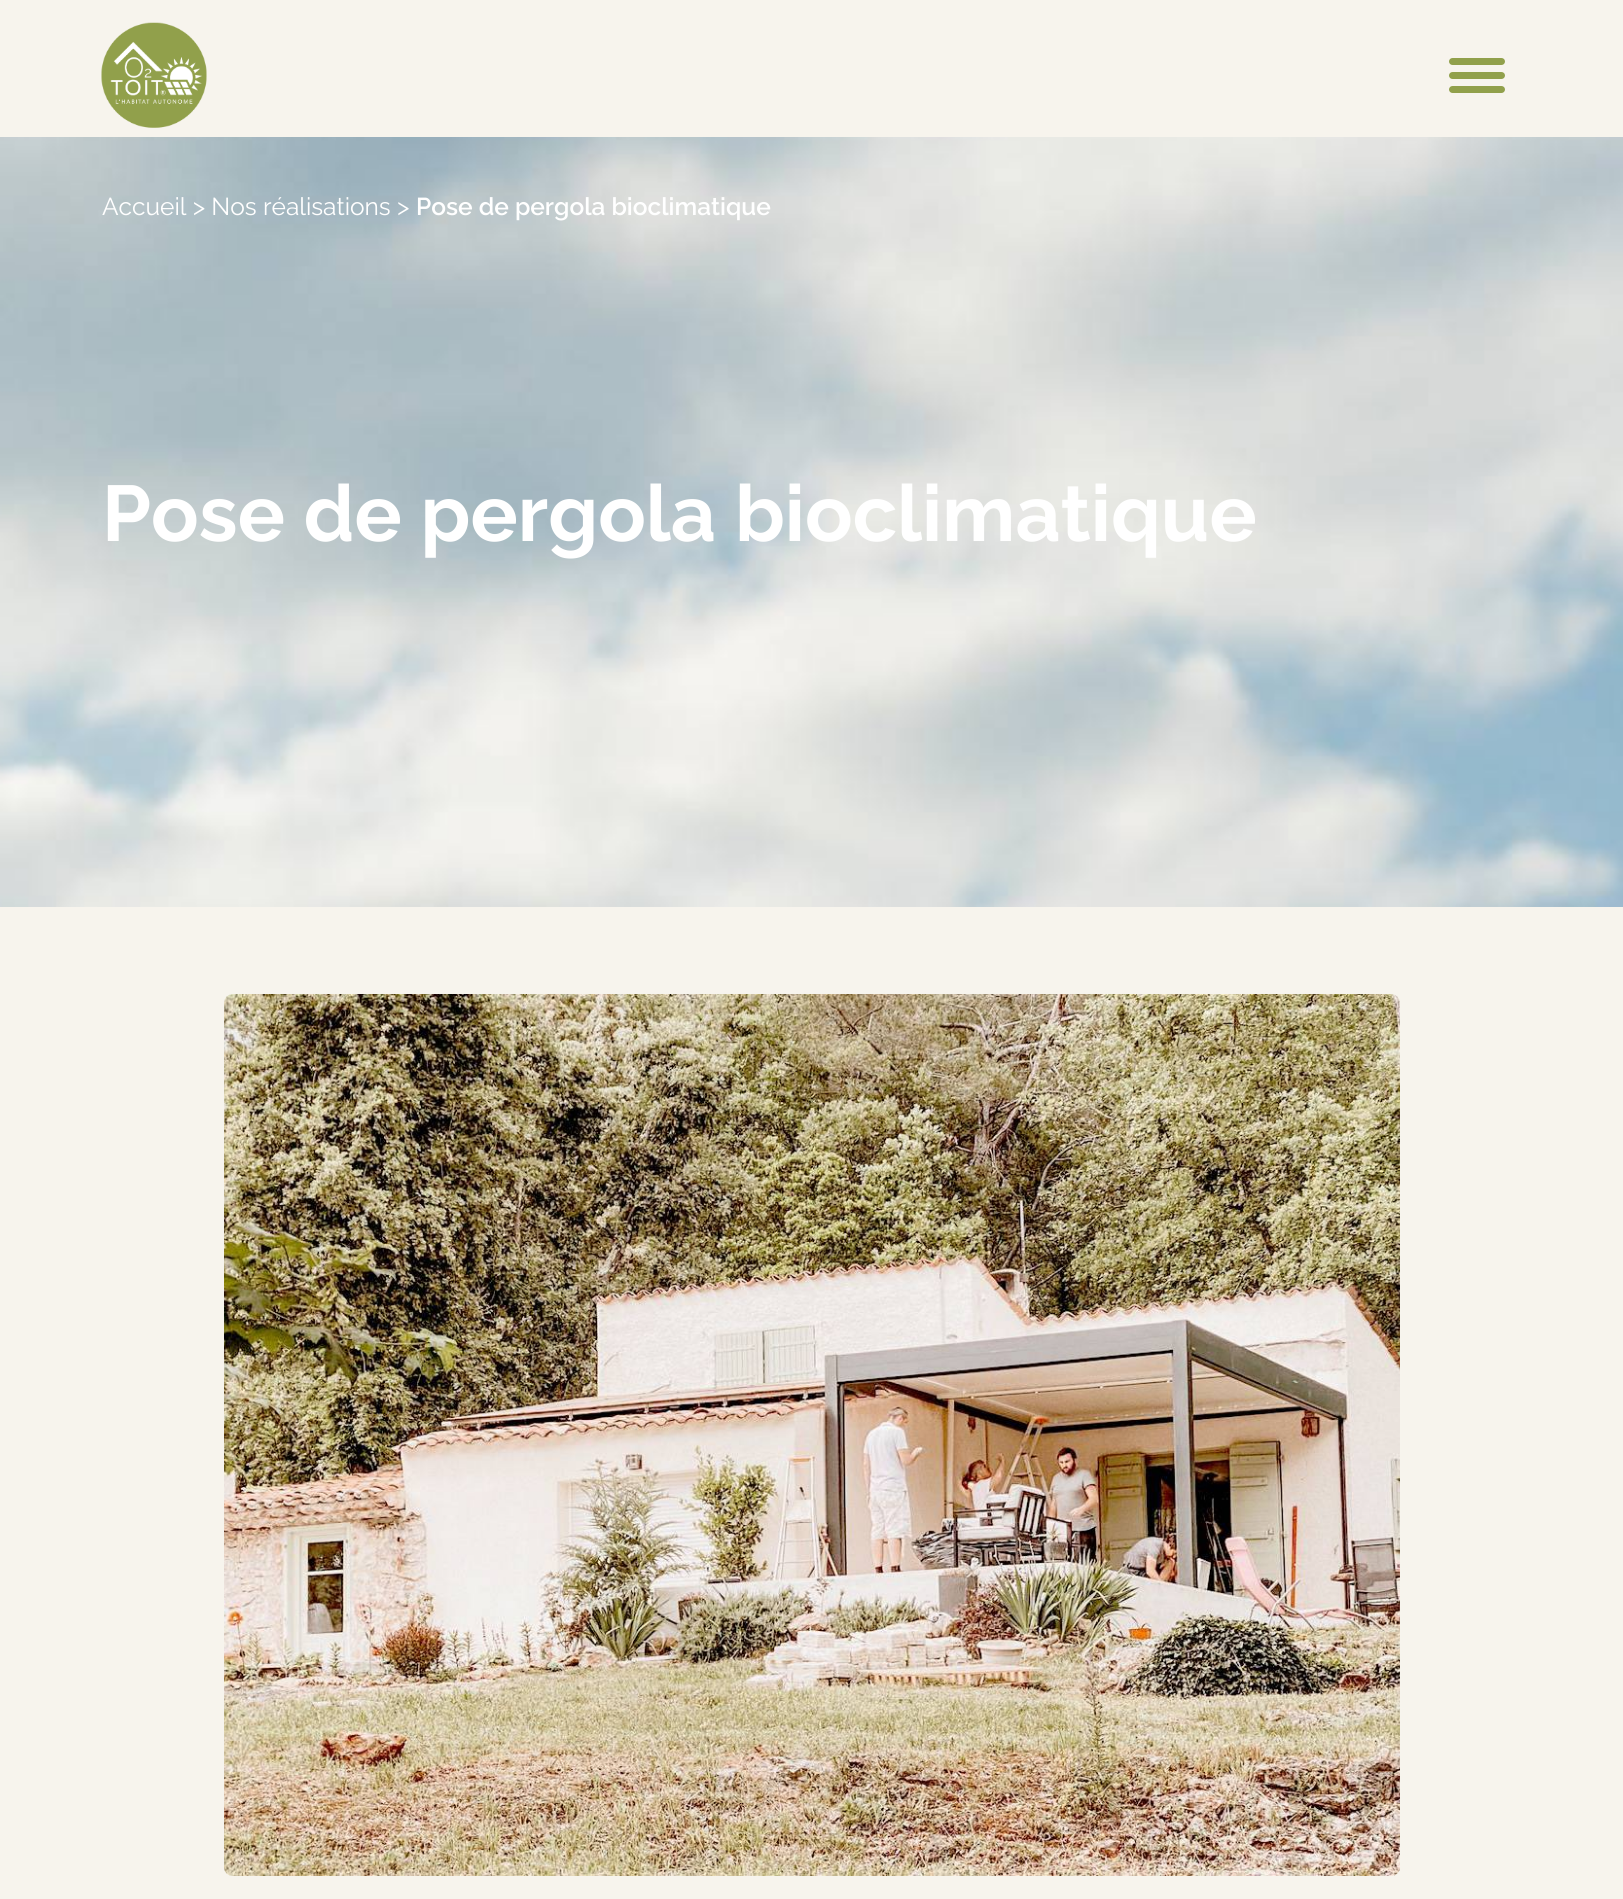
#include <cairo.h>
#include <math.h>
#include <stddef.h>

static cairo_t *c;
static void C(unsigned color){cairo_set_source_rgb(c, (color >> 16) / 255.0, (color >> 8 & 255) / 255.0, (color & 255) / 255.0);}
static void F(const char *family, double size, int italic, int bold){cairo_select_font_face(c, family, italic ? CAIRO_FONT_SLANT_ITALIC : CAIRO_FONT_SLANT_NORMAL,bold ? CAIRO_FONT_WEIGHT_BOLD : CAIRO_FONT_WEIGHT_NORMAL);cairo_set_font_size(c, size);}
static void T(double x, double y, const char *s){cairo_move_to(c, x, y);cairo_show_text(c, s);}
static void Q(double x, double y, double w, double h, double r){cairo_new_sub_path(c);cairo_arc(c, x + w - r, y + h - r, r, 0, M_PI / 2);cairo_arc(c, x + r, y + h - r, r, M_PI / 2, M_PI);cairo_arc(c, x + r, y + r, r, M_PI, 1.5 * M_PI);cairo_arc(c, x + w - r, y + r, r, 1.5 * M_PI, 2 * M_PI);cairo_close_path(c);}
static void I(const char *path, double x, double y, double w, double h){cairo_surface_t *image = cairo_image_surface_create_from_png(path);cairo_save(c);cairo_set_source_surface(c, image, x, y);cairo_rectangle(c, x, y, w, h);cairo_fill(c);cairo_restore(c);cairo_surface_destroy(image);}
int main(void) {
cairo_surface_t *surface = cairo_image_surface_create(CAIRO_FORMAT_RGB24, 1623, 1899);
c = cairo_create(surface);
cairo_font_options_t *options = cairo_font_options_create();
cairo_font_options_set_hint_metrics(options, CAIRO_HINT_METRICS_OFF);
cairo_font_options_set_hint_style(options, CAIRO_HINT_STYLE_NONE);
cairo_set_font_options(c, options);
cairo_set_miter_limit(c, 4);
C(0xf7f4ed);
cairo_paint(c);
I("1.png",101,22,106,106);
C(0x91a04b);
Q(1449,58,56,7,3.5);
cairo_fill(c);
Q(1449,72,56,7,3.5);
cairo_fill(c);
Q(1449,86,56,7,3.5);
cairo_fill(c);
I("2.png",0,137,1623,770);
F("Raleway",24.5,0,0);
C(0xffffff);
T(102,215,"Accueil > Nos réalisations >");
F("Raleway SemiBold",24.5,0,0);
T(416,215,"Pose de pergola bioclimatique");
F("Raleway",78.75,0,1);
T(102,541,"Pose de pergola bioclimatique");
I("3.png",224,994,1176,882);
cairo_surface_write_to_png(surface, "o.png");
cairo_font_options_destroy(options);
cairo_destroy(c);
cairo_surface_destroy(surface);
return 0;
}
